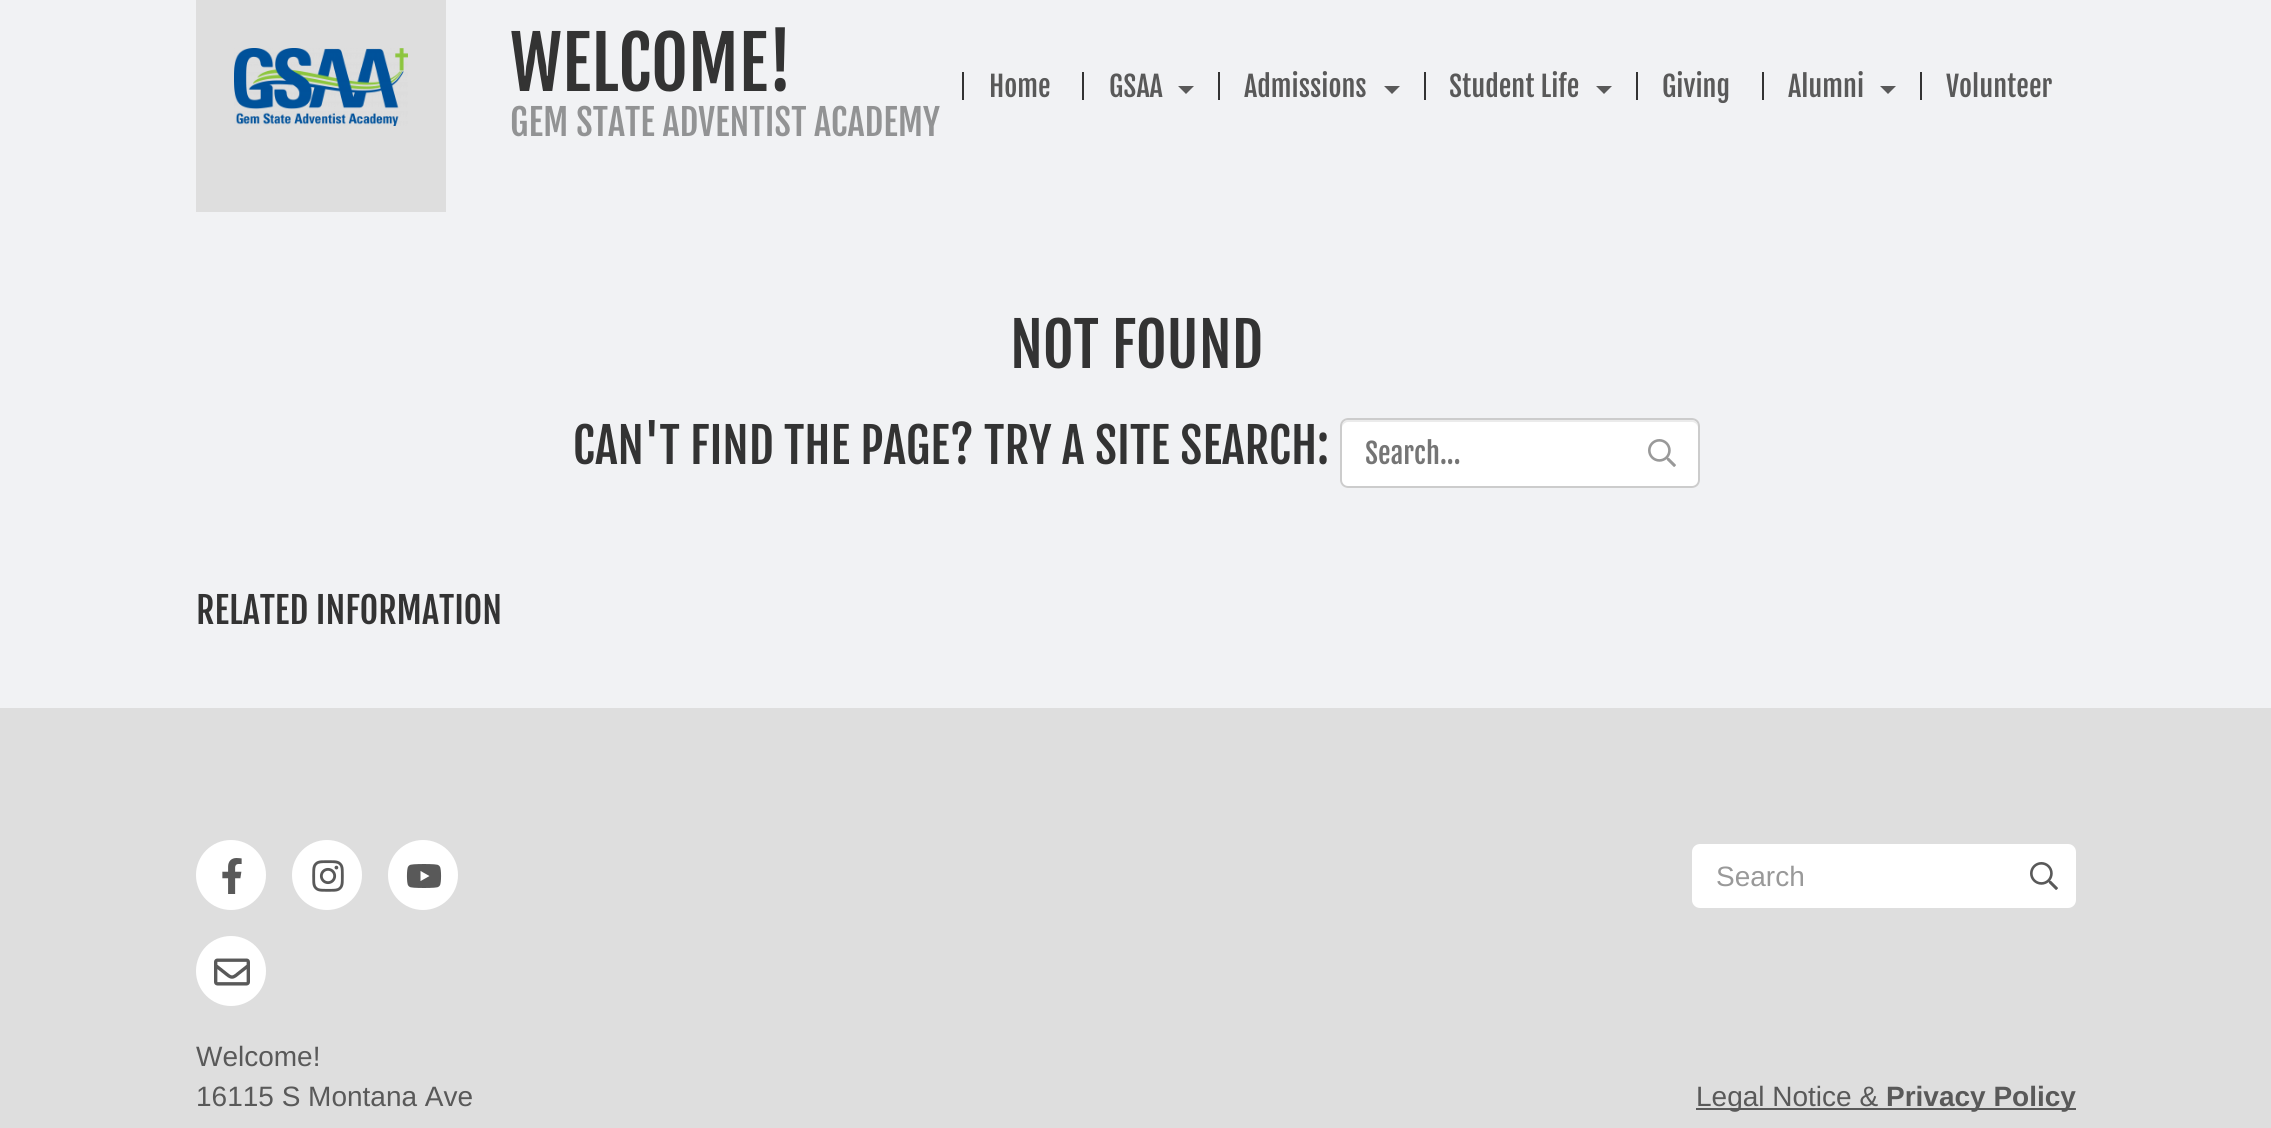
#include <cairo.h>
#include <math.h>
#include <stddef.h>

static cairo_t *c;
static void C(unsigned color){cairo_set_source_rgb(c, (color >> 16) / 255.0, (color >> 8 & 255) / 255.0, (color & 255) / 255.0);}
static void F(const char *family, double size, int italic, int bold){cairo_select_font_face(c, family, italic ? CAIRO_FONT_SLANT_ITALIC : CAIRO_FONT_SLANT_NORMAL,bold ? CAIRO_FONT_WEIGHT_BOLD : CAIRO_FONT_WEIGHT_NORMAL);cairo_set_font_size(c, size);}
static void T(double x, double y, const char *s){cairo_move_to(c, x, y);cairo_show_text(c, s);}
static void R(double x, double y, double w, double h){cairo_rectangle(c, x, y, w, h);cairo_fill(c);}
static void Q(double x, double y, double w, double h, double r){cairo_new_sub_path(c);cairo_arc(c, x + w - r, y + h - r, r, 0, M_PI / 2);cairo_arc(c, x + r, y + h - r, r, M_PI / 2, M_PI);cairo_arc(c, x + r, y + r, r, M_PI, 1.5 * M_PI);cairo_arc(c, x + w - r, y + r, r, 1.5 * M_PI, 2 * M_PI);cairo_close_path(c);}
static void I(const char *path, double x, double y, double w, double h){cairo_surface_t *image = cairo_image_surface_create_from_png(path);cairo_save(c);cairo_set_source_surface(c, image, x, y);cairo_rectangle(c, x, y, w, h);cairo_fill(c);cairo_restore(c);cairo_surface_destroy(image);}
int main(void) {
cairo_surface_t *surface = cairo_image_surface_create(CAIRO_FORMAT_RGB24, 2271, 1128);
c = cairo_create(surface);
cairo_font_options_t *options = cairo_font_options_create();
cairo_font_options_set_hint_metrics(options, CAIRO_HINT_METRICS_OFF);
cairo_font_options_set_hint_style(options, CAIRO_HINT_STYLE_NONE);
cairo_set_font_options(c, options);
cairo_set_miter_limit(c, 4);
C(0xf1f2f4);
cairo_paint(c);
C(0xdedede);
R(196,0,250,212);
I("1.png",234,48,174,78);
F("Fjalla One",72,0,0);
C(0x333333);
T(510,91,"WELCOME!");
F("Fjalla One",36,0,0);
C(0x929394);
T(510,136,"GEM STATE ADVENTIST ACADEMY");
C(0x333333);
R(962,72,2,28);
F("Fjalla One",28,0,0);
C(0x595959);
T(989,97,"Home");
C(0x333333);
R(1082,72,2,28);
C(0x595959);
T(1109,97,"GSAA");
cairo_new_path(c);
cairo_move_to(c,1178,86);
cairo_line_to(c,1194,86);
cairo_line_to(c,1186,94);
cairo_close_path(c);
cairo_fill(c);
C(0x333333);
R(1218,72,2,28);
C(0x595959);
T(1244,97,"Admissions");
cairo_new_path(c);
cairo_move_to(c,1384,86);
cairo_line_to(c,1400,86);
cairo_line_to(c,1392,94);
cairo_close_path(c);
cairo_fill(c);
C(0x333333);
R(1424,72,2,28);
C(0x595959);
T(1449,97,"Student Life");
cairo_new_path(c);
cairo_move_to(c,1596,86);
cairo_line_to(c,1612,86);
cairo_line_to(c,1604,94);
cairo_close_path(c);
cairo_fill(c);
C(0x333333);
R(1636,72,2,28);
C(0x595959);
T(1662,97,"Giving");
C(0x333333);
R(1762,72,2,28);
C(0x595959);
T(1788,97,"Alumni");
cairo_new_path(c);
cairo_move_to(c,1880,86);
cairo_line_to(c,1896,86);
cairo_line_to(c,1888,94);
cairo_close_path(c);
cairo_fill(c);
C(0x333333);
R(1920,72,2,28);
C(0x595959);
T(1946,97,"Volunteer");
F("Fjalla One",60,0,0);
C(0x333333);
T(1010,368,"NOT FOUND");
F("Fjalla One",48,0,0);
T(573,464,"CAN'T FIND THE PAGE? TRY A SITE SEARCH:");
C(0xffffff);
Q(1340,418,360,70,8);
cairo_fill(c);
C(0xebebeb);
cairo_new_path(c);
cairo_move_to(c,1348,422);
cairo_line_to(c,1692,422);
cairo_curve_to(c,1695,422,1698,425,1698,428);
cairo_line_to(c,1698,426);
cairo_curve_to(c,1698,423,1695,420,1692,420);
cairo_line_to(c,1348,420);
cairo_curve_to(c,1345,420,1342,423,1342,426);
cairo_line_to(c,1342,428);
cairo_curve_to(c,1342,425,1345,422,1348,422);
cairo_close_path(c);
cairo_fill(c);
Q(1341,419,358,68,7);
C(0xcccccc);
cairo_stroke(c);
F("Fjalla One",28,0,0);
C(0x757575);
T(1365,464,"Search...");
I("2.png",1648,439,28,28);
F("Fjalla One",36,0,0);
C(0x333333);
T(196,624,"RELATED INFORMATION");
C(0xdedede);
R(0,708,2271,420);
C(0xffffff);
cairo_new_path(c);
cairo_arc(c,231,875,35,0,2 * M_PI);
cairo_fill(c);
I("3.png",222,858,20,36);
cairo_arc(c,327,875,35,0,2 * M_PI);
cairo_fill(c);
I("4.png",312,860,32,32);
cairo_arc(c,423,875,35,0,2 * M_PI);
cairo_fill(c);
I("5.png",406,864,36,24);
cairo_arc(c,231,971,35,0,2 * M_PI);
cairo_fill(c);
I("6.png",214,958,36,28);
F("Liberation Sans",28,0,0);
C(0x595959);
T(196,1066,"Welcome!");
T(196,1106,"16115 S Montana Ave");
C(0xffffff);
Q(1692,844,384,64,8);
cairo_fill(c);
C(0x999999);
T(1716,886,"Search");
I("7.png",2030,862,28,28);
C(0x595959);
R(1696,1108,380,2);
T(1696,1106,"Legal Notice &");
F("Liberation Sans",28,0,1);
T(1886,1106,"Privacy Policy");
cairo_surface_write_to_png(surface, "o.png");
cairo_font_options_destroy(options);
cairo_destroy(c);
cairo_surface_destroy(surface);
return 0;
}
